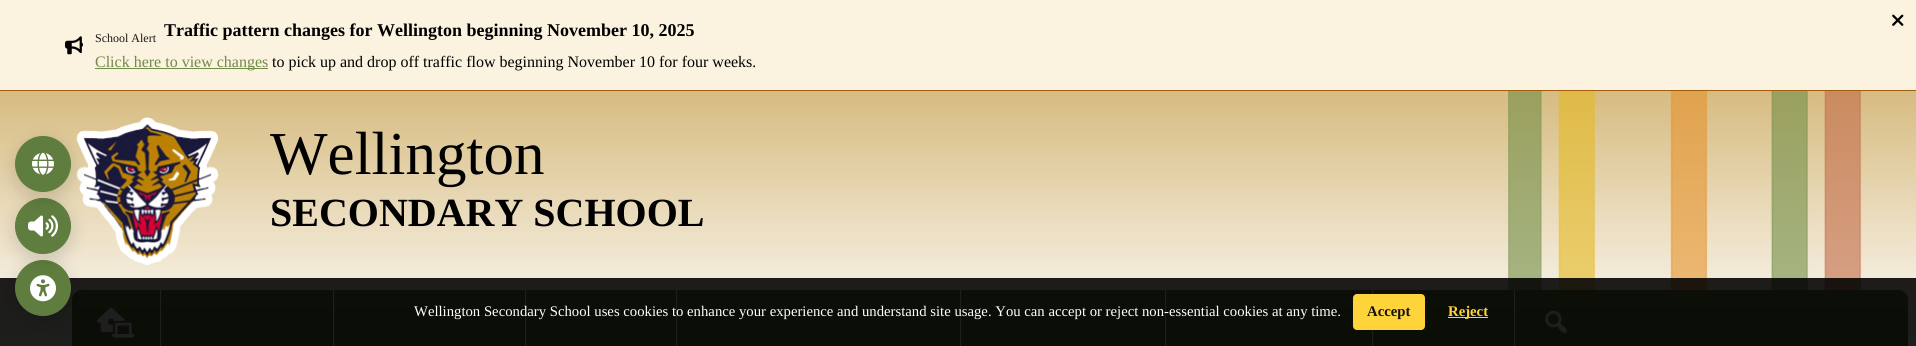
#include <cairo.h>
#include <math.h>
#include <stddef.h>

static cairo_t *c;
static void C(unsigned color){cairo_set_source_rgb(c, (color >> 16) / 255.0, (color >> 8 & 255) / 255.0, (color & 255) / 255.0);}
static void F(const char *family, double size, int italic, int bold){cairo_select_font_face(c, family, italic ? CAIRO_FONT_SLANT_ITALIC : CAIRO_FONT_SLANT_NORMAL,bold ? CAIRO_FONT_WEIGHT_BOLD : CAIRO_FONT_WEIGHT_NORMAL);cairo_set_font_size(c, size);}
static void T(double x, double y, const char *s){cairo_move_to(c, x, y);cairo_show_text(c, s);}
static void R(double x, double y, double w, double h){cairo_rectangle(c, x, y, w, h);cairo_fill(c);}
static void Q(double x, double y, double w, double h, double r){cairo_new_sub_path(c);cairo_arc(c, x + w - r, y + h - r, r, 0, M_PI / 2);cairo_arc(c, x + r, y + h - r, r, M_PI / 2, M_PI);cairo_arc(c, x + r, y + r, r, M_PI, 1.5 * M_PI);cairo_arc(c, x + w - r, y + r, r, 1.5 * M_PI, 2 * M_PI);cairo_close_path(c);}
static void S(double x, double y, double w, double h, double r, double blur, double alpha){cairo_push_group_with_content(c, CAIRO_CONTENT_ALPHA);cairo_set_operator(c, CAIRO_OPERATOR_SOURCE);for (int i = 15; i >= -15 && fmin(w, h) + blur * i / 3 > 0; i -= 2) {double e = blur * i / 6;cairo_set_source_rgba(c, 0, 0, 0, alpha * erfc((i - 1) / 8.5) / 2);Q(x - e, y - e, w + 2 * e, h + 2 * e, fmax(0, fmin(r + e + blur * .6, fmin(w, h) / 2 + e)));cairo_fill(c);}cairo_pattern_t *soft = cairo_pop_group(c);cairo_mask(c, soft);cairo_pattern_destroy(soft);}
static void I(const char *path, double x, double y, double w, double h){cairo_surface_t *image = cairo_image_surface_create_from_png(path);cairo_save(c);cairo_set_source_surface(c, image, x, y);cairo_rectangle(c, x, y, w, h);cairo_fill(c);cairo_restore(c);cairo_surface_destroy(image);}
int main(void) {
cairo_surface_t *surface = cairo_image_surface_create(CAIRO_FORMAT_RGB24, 1916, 346);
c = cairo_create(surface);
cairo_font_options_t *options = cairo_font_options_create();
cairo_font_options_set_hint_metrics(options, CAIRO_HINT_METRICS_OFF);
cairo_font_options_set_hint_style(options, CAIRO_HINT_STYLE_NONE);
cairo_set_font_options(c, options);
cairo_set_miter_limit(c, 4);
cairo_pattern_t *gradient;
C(0xfbf2df);
cairo_paint(c);
gradient = cairo_pattern_create_linear(958,91,958,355);
cairo_pattern_add_color_stop_rgba(gradient,0,0.843,0.737,0.506,1);
cairo_pattern_add_color_stop_rgba(gradient,1,1,1,1,1);
cairo_set_source(c,gradient);
cairo_pattern_destroy(gradient);
R(0,91,1916,255);
I("7.png",76,117,143,149);
C(0x5b7a39);
Q(72,290,1836,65,10);
cairo_fill(c);
gradient = cairo_pattern_create_linear(990,290,990,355);
cairo_pattern_add_color_stop_rgba(gradient,0,1,1,1,.03);
cairo_pattern_add_color_stop_rgba(gradient,1,0,0,0,.03);
cairo_set_source(c,gradient);
cairo_pattern_destroy(gradient);
R(72,290,1836,56);
I("8.png",97,307,38,31);
I("6.png",1508,91,354,199);
cairo_set_source_rgba(c,1,1,1,0.1);
R(161,290,1,56);
C(0xffffff);
R(160,290,1,56);
cairo_set_source_rgba(c,1,1,1,0.1);
R(334,290,1,56);
C(0xffffff);
R(333,290,1,56);
cairo_set_source_rgba(c,1,1,1,0.04);
R(334,290,1,56);
cairo_set_source_rgba(c,1,1,1,0.1);
R(526,290,1,56);
C(0xffffff);
R(525,290,1,56);
cairo_set_source_rgba(c,1,1,1,0.04);
R(526,290,1,56);
cairo_set_source_rgba(c,1,1,1,0.1);
R(677,290,1,56);
C(0xffffff);
R(676,290,1,56);
cairo_set_source_rgba(c,1,1,1,0.04);
R(677,290,1,56);
cairo_set_source_rgba(c,1,1,1,0.1);
R(961,290,1,56);
C(0xffffff);
R(960,290,1,56);
cairo_set_source_rgba(c,1,1,1,0.04);
R(961,290,1,56);
cairo_set_source_rgba(c,1,1,1,0.1);
R(1166,290,1,56);
C(0xffffff);
R(1165,290,1,56);
cairo_set_source_rgba(c,1,1,1,0.04);
R(1166,290,1,56);
cairo_set_source_rgba(c,1,1,1,0.1);
R(1373,290,1,56);
C(0xffffff);
R(1372,290,1,56);
cairo_set_source_rgba(c,1,1,1,0.04);
R(1373,290,1,56);
cairo_set_source_rgba(c,1,1,1,0.1);
R(1515,290,1,56);
C(0xffffff);
R(1514,290,1,56);
cairo_set_source_rgba(c,1,1,1,0.04);
R(1515,290,1,56);
I("9.png",1545,310,22,24);
cairo_set_source_rgba(c,0,0,0,0.88);
R(0,278,1916,68);
C(0x000000);
S(15,266,56,56,28,9,.14);
C(0x5f7d3e);
cairo_arc(c,43,288,27.5,0,2 * M_PI);
cairo_fill_preserve(c);
cairo_set_line_width(c,1);
cairo_stroke(c);
I("3.png",30,275,26,27);
C(0x000000);
S(15,204,56,56,28,9,.14);
C(0x5f7d3e);
cairo_arc(c,43,226,27.5,0,2 * M_PI);
cairo_fill_preserve(c);
cairo_stroke(c);
I("2.png",28,215,30,22);
C(0x000000);
S(15,142,56,56,28,9,.14);
C(0x5f7d3e);
cairo_arc(c,43,164,27.5,0,2 * M_PI);
cairo_fill_preserve(c);
cairo_stroke(c);
I("1.png",32,152,22,23);
C(0xa25e10);
R(0,90,1916,1);
I("4.png",1892,14,12,12);
I("5.png",65,36,18,19);
F("Liberation Serif",12,0,0);
C(0x191816);
T(95,42,"School Alert");
F("Liberation Serif",18,0,1);
C(0x000000);
T(164,36,"Traffic pattern changes for Wellington beginning November 10, 2025");
C(0x6f8b46);
R(95,68,173,1);
F("Liberation Serif",16,0,0);
T(95,67,"Click here to view changes");
C(0x000000);
T(272,67,"to pick up and drop off traffic flow beginning November 10 for four weeks.");
F("Liberation Serif",61,0,0);
T(270,174,"Wellington");
F("Liberation Serif",40,0,1);
T(270,226,"SECONDARY SCHOOL");
F("Liberation Serif",14.72,0,0);
C(0xffffff);
T(414,316,"Wellington Secondary School uses cookies to enhance your experience and understand site usage. You can accept or reject non-essential cookies at any time.");
C(0xffd43b);
Q(1353,294,72,36,4);
cairo_fill(c);
F("Liberation Serif",14.72,0,1);
C(0x111111);
T(1367,316,"Accept");
C(0xffd43b);
R(1448,317,40,1);
T(1448,316,"Reject");
cairo_surface_write_to_png(surface, "o.png");
cairo_font_options_destroy(options);
cairo_destroy(c);
cairo_surface_destroy(surface);
return 0;
}
